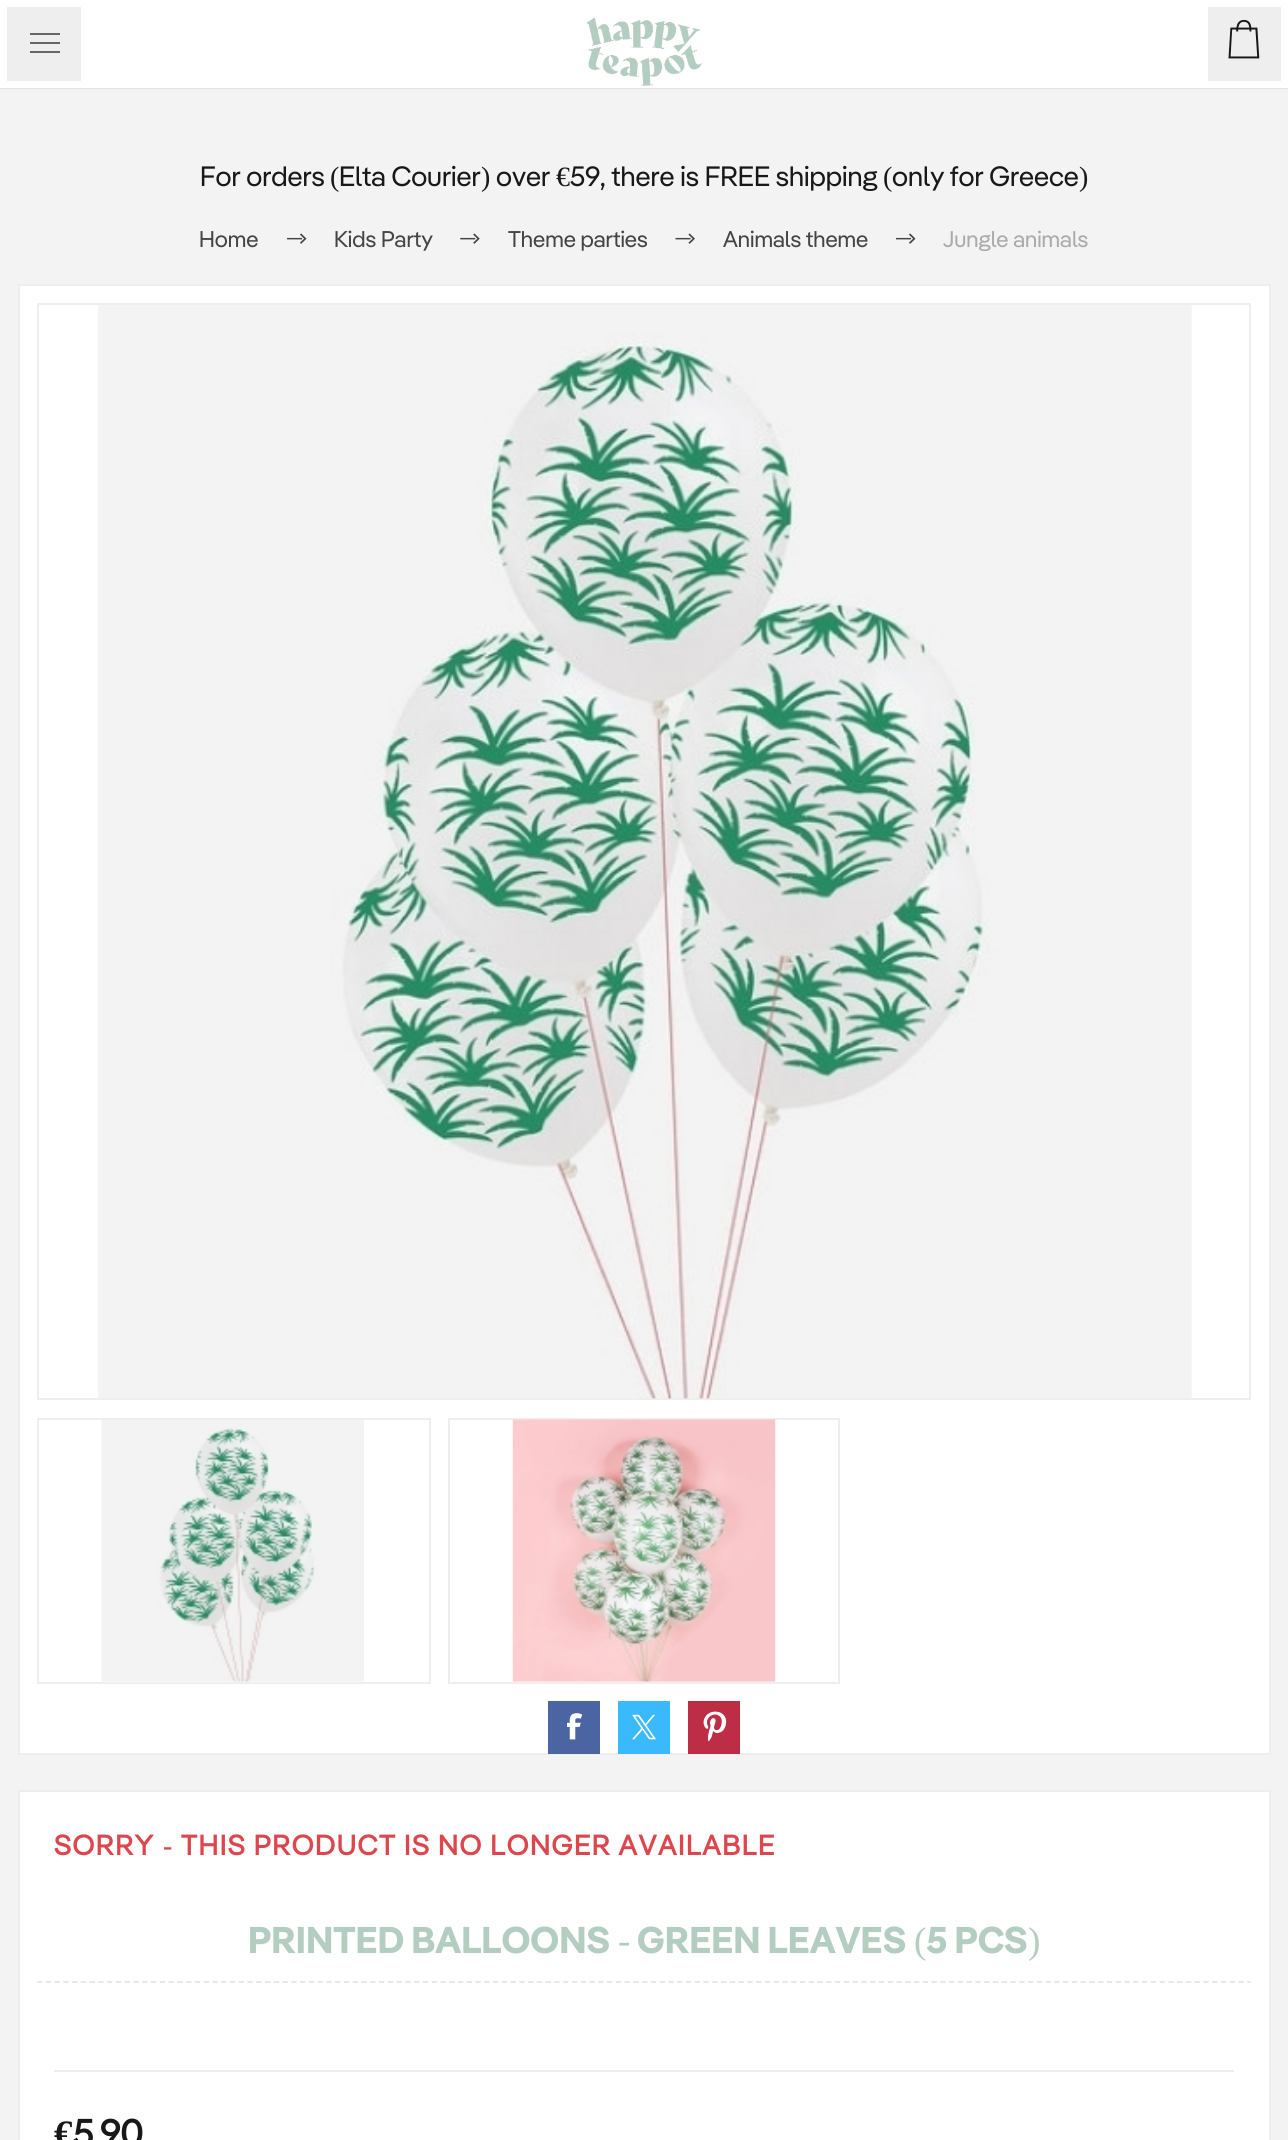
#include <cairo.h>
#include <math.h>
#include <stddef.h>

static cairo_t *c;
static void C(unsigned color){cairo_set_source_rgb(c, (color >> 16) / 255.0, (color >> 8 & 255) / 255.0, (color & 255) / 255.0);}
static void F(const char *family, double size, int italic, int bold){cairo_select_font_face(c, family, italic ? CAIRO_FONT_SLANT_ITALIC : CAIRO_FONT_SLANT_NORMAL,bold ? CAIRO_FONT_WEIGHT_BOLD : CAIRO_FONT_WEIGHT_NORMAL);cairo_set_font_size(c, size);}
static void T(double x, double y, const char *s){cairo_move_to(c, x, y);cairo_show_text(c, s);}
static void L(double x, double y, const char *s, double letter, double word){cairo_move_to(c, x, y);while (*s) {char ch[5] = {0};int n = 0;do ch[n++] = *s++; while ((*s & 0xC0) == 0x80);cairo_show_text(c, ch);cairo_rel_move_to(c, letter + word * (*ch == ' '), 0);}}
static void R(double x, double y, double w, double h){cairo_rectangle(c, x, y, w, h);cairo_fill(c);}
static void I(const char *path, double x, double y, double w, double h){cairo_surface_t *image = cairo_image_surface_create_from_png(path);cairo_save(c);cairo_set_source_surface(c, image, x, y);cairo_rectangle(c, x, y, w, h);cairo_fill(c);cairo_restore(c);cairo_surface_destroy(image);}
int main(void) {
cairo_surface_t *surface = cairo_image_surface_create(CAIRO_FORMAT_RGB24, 1288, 2140);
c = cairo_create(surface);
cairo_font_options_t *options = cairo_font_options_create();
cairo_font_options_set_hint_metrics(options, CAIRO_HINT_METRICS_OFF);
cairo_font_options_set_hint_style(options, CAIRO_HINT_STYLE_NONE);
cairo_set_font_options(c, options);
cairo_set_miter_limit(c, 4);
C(0xf3f3f3);
cairo_paint(c);
C(0xe3e3e3);
R(0,88,1288,1);
C(0xffffff);
R(88,0,1113,88);
I("1.png",586,17,116,69);
C(0xeeeeee);
cairo_rectangle(c,3.5,3.5,81,81);
cairo_fill_preserve(c);
C(0xffffff);
cairo_set_line_width(c,7);
cairo_stroke(c);
C(0x666666);
R(30,33,30,2);
R(30,42,30,2);
R(30,51,30,2);
C(0xeeeeee);
cairo_rectangle(c,1204.5,3.5,80,81);
cairo_fill_preserve(c);
C(0xffffff);
cairo_stroke(c);
I("2.png",1228,19,32,40);
F("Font",28,0,0);
C(0x181818);
T(200,186,"For orders");
F("Liberation Serif",28,0,0);
T(330,186,"(");
F("Font",28,0,0);
T(339,186,"Elta Courier");
F("Liberation Serif",28,0,0);
T(481,186,")");
F("Font",28,0,0);
T(496,186,"over");
F("Liberation Serif",28,0,0);
T(556,186,"€");
F("Font",28,0,0);
T(570,186,"59, there is FREE shipping");
F("Liberation Serif",28,0,0);
T(883,186,"(");
F("Font",28,0,0);
T(892,186,"only for Greece");
F("Liberation Serif",28,0,0);
T(1079,186,")");
F("Font",22.75,0,0);
C(0x444444);
T(199,247,"Home");
I("3.png",287,233,20,11);
T(334,247,"Kids Party");
I("4.png",460,233,20,11);
T(508,247,"Theme parties");
I("5.png",675,233,20,11);
T(723,247,"Animals theme");
I("3.png",896,233,20,11);
C(0xaaaaaa);
T(943,247,"Jungle animals");
C(0xffffff);
cairo_rectangle(c,19,285,1251,1469);
cairo_fill_preserve(c);
C(0xeeeeee);
cairo_set_line_width(c,2);
cairo_stroke(c);
cairo_rectangle(c,38,304,1212,1095);
cairo_stroke(c);
I("6.png",98,305,1094,1094);
cairo_rectangle(c,38,1419,392,264);
cairo_stroke(c);
I("7.png",101,1420,263,262);
cairo_rectangle(c,449,1419,390,264);
cairo_stroke(c);
I("8.png",512,1419,264,263);
C(0x4a65a2);
R(548,1701,52,53);
I("9.png",567,1713,16,27);
C(0x3abafd);
R(618,1701,52,53);
I("10.png",632,1714,24,26);
C(0xbd2d45);
R(688,1701,52,53);
I("11.png",703,1711,24,31);
C(0xffffff);
cairo_rectangle(c,19,1791,1251,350);
cairo_fill_preserve(c);
C(0xeeeeee);
cairo_stroke(c);
F("Font",28,0,1);
C(0xdd464d);
L(54,1855,"SORRY",1.75,0);
F("Liberation Serif",28,0,1);
L(163,1855,"-",1.75,0);
F("Font",28,0,1);
L(181,1855,"THIS PRODUCT IS NO LONGER AVAILABLE",1.75,0);
cairo_new_path(c);
cairo_move_to(c,37,1982);
cairo_line_to(c,1251,1982);
C(0xe6e6e6);
cairo_set_line_width(c,1.8);
cairo_set_dash(c,(double[]){5.25,3.52},2,0);
cairo_stroke(c);
F("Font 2",37.25,0,1);
C(0xb3cdc1);
T(248,1953,"PRINTED BALLOONS");
F("Liberation Serif",37.25,0,0);
T(618,1953,"-");
F("Font 2",37.25,0,1);
T(637,1953,"GREEN LEAVES");
F("Liberation Serif",37.25,0,0);
T(914,1953,"(");
F("Font 2",37.25,0,1);
T(926,1953,"5 PCS");
F("Liberation Serif",37.25,0,0);
T(1028,1953,")");
C(0xeeeeee);
R(54,2070,1180,2);
F("Liberation Serif",37.25,0,1);
C(0x181818);
T(54,2146,"€");
F("Font",37.25,0,1);
T(73,2146,"5.90");
cairo_surface_write_to_png(surface, "o.png");
cairo_font_options_destroy(options);
cairo_destroy(c);
cairo_surface_destroy(surface);
return 0;
}
